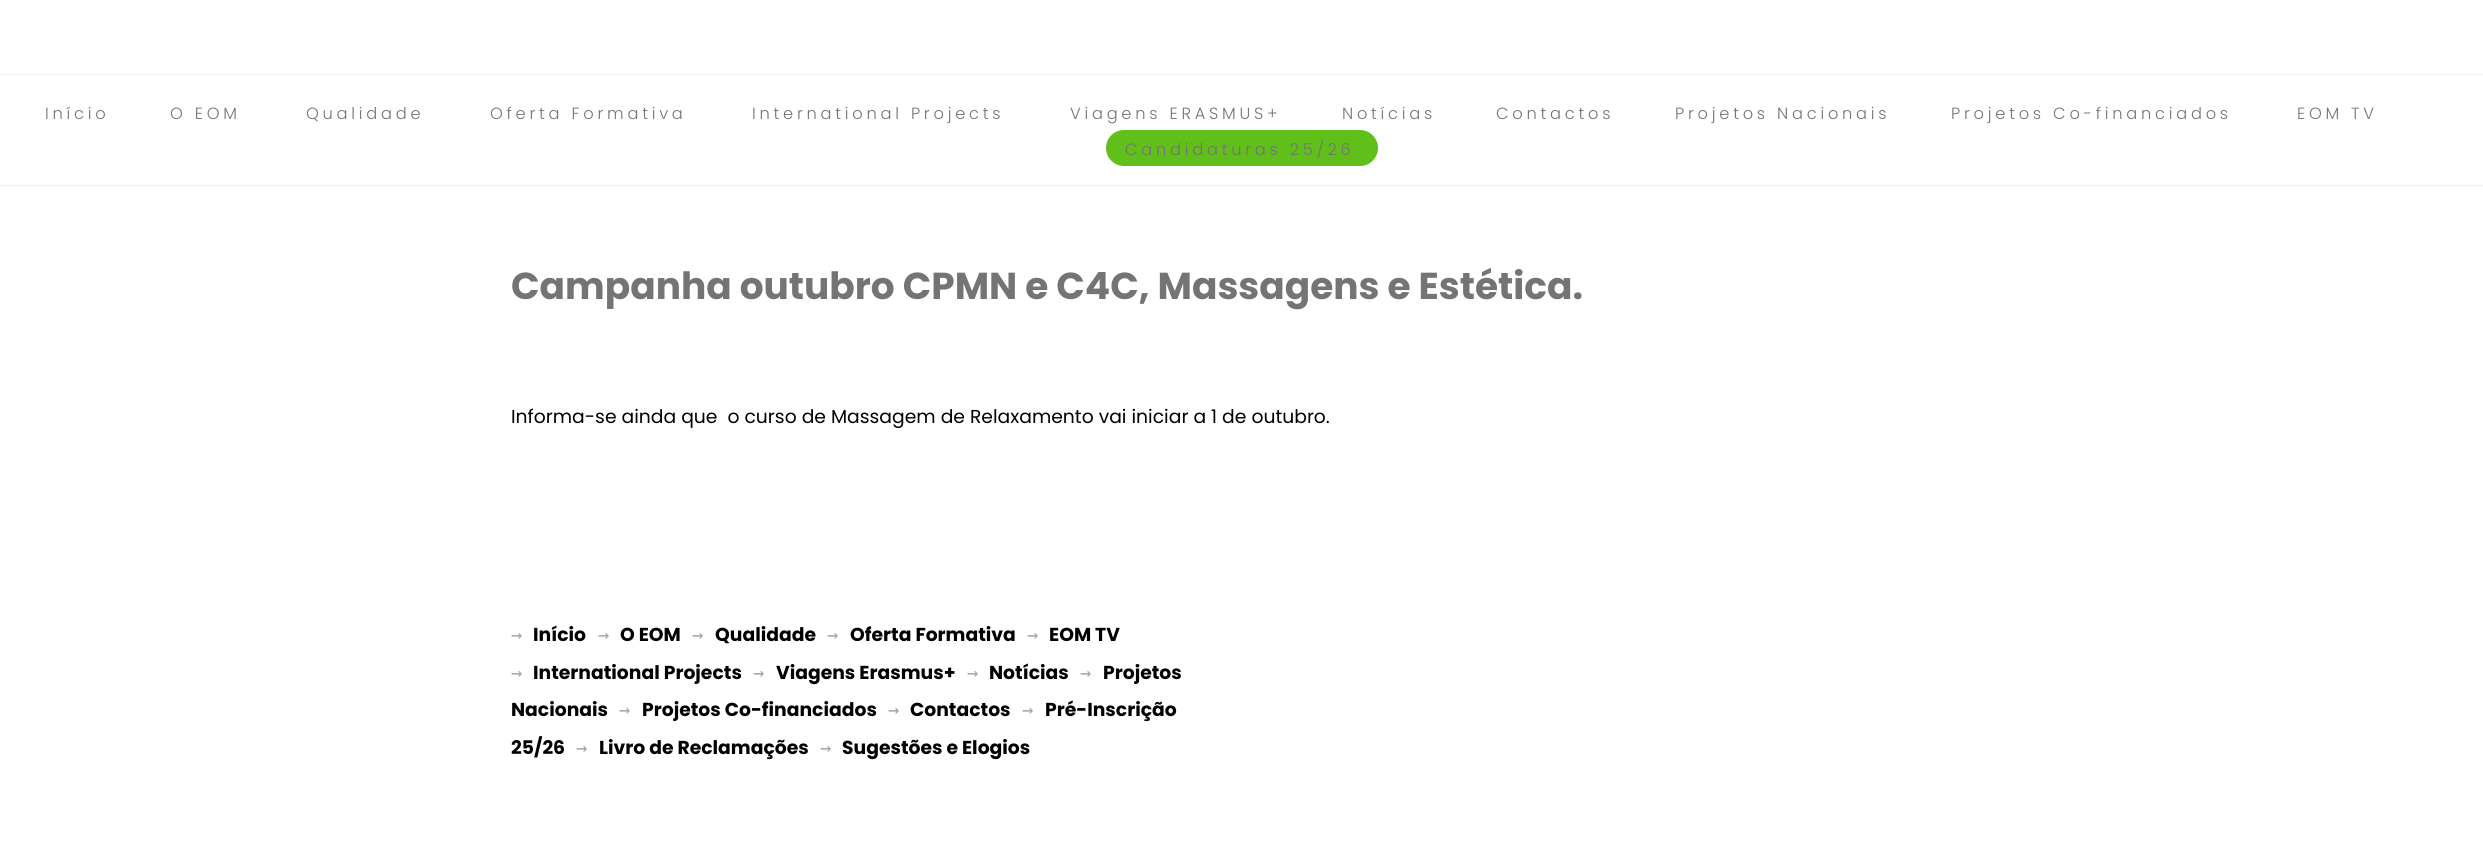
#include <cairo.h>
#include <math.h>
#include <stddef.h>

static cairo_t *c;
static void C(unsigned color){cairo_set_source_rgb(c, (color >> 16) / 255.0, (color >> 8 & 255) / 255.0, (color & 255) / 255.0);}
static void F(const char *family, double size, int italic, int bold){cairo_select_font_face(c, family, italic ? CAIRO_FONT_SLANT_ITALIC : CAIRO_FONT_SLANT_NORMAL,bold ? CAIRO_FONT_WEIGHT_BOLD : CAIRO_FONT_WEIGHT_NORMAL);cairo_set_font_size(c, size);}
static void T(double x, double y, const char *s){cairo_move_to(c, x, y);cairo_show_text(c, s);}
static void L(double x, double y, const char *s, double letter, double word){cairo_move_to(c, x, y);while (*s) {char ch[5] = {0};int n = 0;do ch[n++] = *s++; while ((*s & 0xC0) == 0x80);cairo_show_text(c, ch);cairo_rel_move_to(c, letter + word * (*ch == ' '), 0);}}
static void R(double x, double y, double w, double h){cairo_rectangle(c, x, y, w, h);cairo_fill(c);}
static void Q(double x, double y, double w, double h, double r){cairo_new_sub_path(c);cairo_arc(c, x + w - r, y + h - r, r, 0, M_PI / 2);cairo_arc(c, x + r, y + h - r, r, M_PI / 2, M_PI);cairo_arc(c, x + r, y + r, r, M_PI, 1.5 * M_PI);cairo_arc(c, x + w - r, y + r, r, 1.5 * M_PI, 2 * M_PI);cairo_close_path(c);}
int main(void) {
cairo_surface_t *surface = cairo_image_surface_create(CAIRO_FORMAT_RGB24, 2483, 851);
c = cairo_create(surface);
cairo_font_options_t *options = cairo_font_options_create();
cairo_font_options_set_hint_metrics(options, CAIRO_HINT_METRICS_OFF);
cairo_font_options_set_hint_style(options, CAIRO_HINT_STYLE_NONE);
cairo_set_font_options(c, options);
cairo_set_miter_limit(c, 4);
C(0xffffff);
cairo_paint(c);
C(0xf1f1f1);
R(0,74,2483,1);
R(0,185,2483,1);
F("Poppins Light",16.25,0,0);
C(0x727475);
L(45,119,"Início",3.75,0);
L(170,119,"O EOM",3.75,0);
L(306,119,"Qualidade",3.75,0);
L(490,119,"Oferta Formativa",3.75,0);
L(752,119,"International Projects",3.75,0);
L(1070,119,"Viagens ERASMUS+",3.75,0);
L(1342,119,"Notícias",3.75,0);
L(1496,119,"Contactos",3.75,0);
L(1675,119,"Projetos Nacionais",3.75,0);
L(1951,119,"Projetos Co-financiados",3.75,0);
L(2297,119,"EOM TV",3.75,0);
C(0x60bf19);
Q(1106,130,272,36,18);
cairo_fill(c);
C(0x727475);
L(1125,155,"Candidaturas 25/26",3.75,0);
F("Poppins",37.5,0,1);
T(511,299,"Campanha outubro CPMN e C4C, Massagens e Estética.");
F("Poppins",18.75,0,0);
C(0x000000);
T(511,423,"Informa-se ainda que  o curso de Massagem de Relaxamento vai iniciar a 1 de outubro.");
F("DejaVu Sans Mono",18.75,0,0);
C(0xa3a3a3);
T(511,641,"→");
F("Poppins",18.75,0,1);
C(0x000000);
T(533,641,"Início");
F("DejaVu Sans Mono",18.75,0,0);
C(0xa3a3a3);
T(598,641,"→");
F("Poppins",18.75,0,1);
C(0x000000);
T(620,641,"O EOM");
F("DejaVu Sans Mono",18.75,0,0);
C(0xa3a3a3);
T(692,641,"→");
F("Poppins",18.75,0,1);
C(0x000000);
T(715,641,"Qualidade");
F("DejaVu Sans Mono",18.75,0,0);
C(0xa3a3a3);
T(827,641,"→");
F("Poppins",18.75,0,1);
C(0x000000);
T(850,641,"Oferta Formativa");
F("DejaVu Sans Mono",18.75,0,0);
C(0xa3a3a3);
T(1027,641,"→");
F("Poppins",18.75,0,1);
C(0x000000);
T(1049,641,"EOM TV");
F("DejaVu Sans Mono",18.75,0,0);
C(0xa3a3a3);
T(511,679,"→");
F("Poppins",18.75,0,1);
C(0x000000);
T(533,679,"International Projects");
F("DejaVu Sans Mono",18.75,0,0);
C(0xa3a3a3);
T(753,679,"→");
F("Poppins",18.75,0,1);
C(0x000000);
T(776,679,"Viagens Erasmus+");
F("DejaVu Sans Mono",18.75,0,0);
C(0xa3a3a3);
T(967,679,"→");
F("Poppins",18.75,0,1);
C(0x000000);
T(989,679,"Notícias");
F("DejaVu Sans Mono",18.75,0,0);
C(0xa3a3a3);
T(1080,679,"→");
F("Poppins",18.75,0,1);
C(0x000000);
T(1103,679,"Projetos");
T(511,716,"Nacionais");
F("DejaVu Sans Mono",18.75,0,0);
C(0xa3a3a3);
T(619,716,"→");
F("Poppins",18.75,0,1);
C(0x000000);
T(642,716,"Projetos Co-financiados");
F("DejaVu Sans Mono",18.75,0,0);
C(0xa3a3a3);
T(888,716,"→");
F("Poppins",18.75,0,1);
C(0x000000);
T(910,716,"Contactos");
F("DejaVu Sans Mono",18.75,0,0);
C(0xa3a3a3);
T(1022,716,"→");
F("Poppins",18.75,0,1);
C(0x000000);
T(1045,716,"Pré-Inscrição");
T(511,754,"25/26");
F("DejaVu Sans Mono",18.75,0,0);
C(0xa3a3a3);
T(576,754,"→");
F("Poppins",18.75,0,1);
C(0x000000);
T(599,754,"Livro de Reclamações");
F("DejaVu Sans Mono",18.75,0,0);
C(0xa3a3a3);
T(820,754,"→");
F("Poppins",18.75,0,1);
C(0x000000);
T(842,754,"Sugestões e Elogios");
cairo_surface_write_to_png(surface, "o.png");
cairo_font_options_destroy(options);
cairo_destroy(c);
cairo_surface_destroy(surface);
return 0;
}
